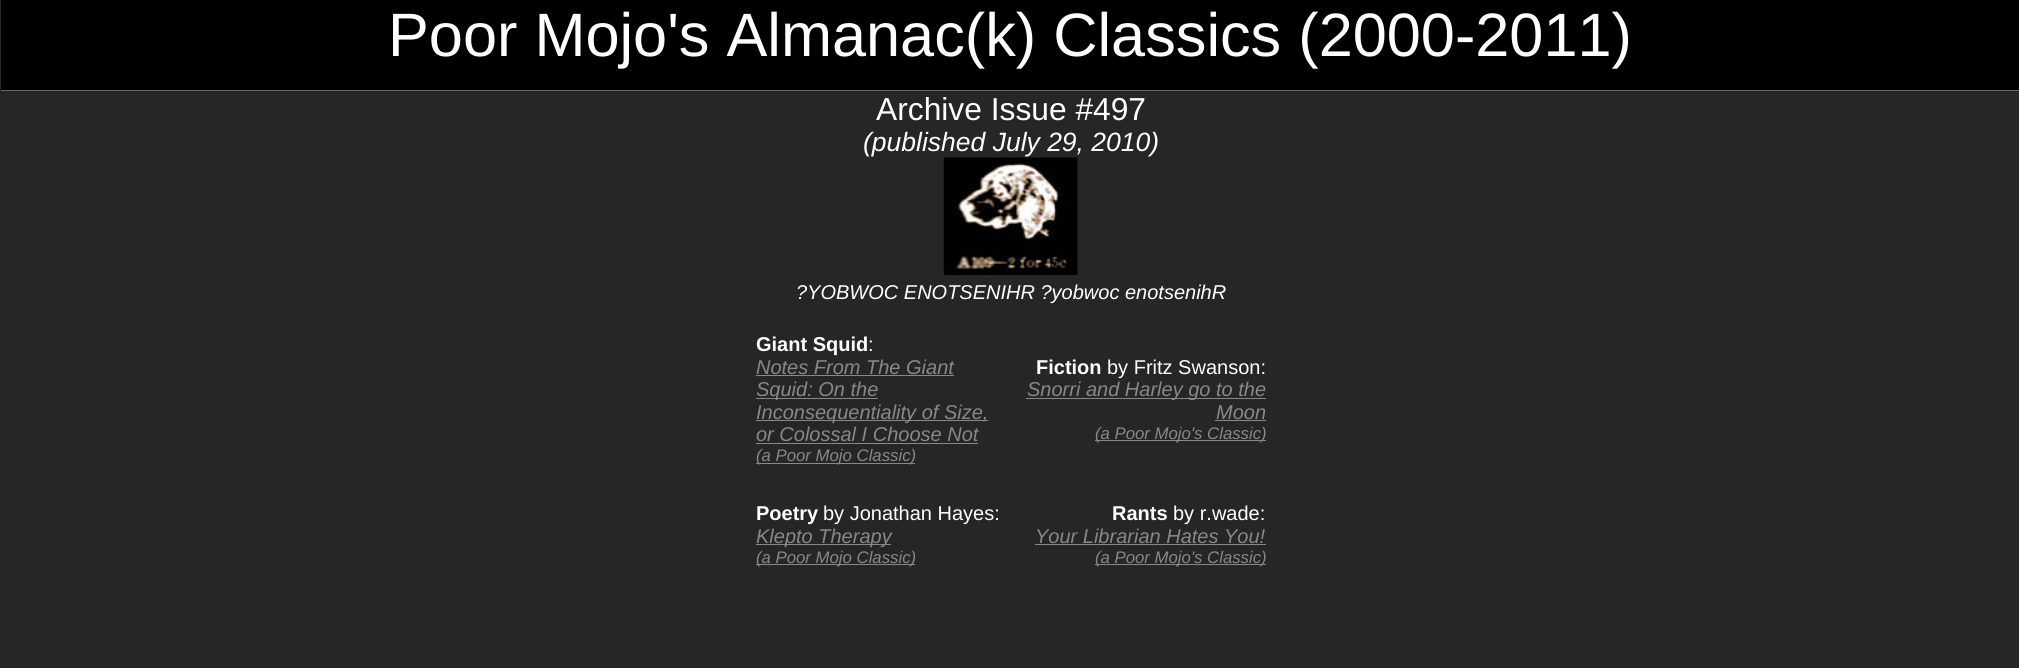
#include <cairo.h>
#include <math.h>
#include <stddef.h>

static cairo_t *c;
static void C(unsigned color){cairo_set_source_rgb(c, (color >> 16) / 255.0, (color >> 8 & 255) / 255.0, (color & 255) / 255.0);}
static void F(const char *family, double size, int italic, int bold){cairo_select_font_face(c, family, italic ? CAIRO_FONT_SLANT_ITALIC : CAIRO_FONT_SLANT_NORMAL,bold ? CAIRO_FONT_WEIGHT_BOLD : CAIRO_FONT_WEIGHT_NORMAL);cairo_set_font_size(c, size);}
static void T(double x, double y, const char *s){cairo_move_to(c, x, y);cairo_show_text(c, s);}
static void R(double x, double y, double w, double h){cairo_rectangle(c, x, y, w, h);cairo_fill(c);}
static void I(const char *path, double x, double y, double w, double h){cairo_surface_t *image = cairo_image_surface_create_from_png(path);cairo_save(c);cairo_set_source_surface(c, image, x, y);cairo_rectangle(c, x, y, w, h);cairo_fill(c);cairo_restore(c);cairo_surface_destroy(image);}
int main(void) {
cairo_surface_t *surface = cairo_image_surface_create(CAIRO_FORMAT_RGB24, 2019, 668);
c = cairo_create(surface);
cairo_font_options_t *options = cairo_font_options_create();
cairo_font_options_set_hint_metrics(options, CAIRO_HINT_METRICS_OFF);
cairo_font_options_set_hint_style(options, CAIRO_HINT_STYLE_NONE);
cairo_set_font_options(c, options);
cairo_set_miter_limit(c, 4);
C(0x262626);
cairo_paint(c);
C(0x000000);
R(1,0,2018,90);
C(0x666666);
R(1,90,2018,1);
F("Liberation Sans",61.25,0,0);
C(0xffffff);
T(388,56,"Poor Mojo's Almanac(k) Classics (2000-2011)");
F("Liberation Sans",31.75,0,0);
T(876,120,"Archive Issue #497");
F("Liberation Sans",26.5,1,0);
T(863,151,"(published July 29, 2010)");
I("1.png",943,157,135,118);
F("Liberation Sans",20,1,0);
T(796,299,"?YOBWOC ENOTSENIHR ?yobwoc enotsenihR");
F("Liberation Sans",20,0,1);
T(756,351,"Giant Squid");
F("Liberation Sans",20,0,0);
T(868,351,":");
F("Liberation Sans",20,1,0);
C(0x888888);
T(756,374,"Notes From The Giant");
R(756,375,198,1);
R(756,398,122,1);
T(756,396,"Squid: On the");
R(756,420,232,1);
T(756,419,"Inconsequentiality of Size,");
T(756,441,"or Colossal I Choose Not");
R(756,443,222,1);
R(756,463,159,1);
F("Liberation Sans",16.75,1,0);
T(756,461,"(a Poor Mojo Classic)");
F("Liberation Sans",20,0,1);
C(0xffffff);
T(1036,374,"Fiction");
F("Liberation Sans",20,0,0);
T(1107,374,"by Fritz Swanson:");
C(0x888888);
R(1026,398,240,1);
F("Liberation Sans",20,1,0);
T(1027,396,"Snorri and Harley go to the");
T(1216,419,"Moon");
R(1215,420,51,1);
R(1095,440,171,1);
F("Liberation Sans",16.75,1,0);
T(1095,439,"(a Poor Mojo's Classic)");
F("Liberation Sans",20,0,1);
C(0xffffff);
T(756,520,"Poetry");
F("Liberation Sans",20,0,0);
T(823,520,"by Jonathan Hayes:");
C(0x888888);
R(756,544,135,1);
F("Liberation Sans",20,1,0);
T(756,543,"Klepto Therapy");
R(756,564,159,1);
F("Liberation Sans",16.75,1,0);
T(756,563,"(a Poor Mojo Classic)");
F("Liberation Sans",20,0,1);
C(0xffffff);
T(1112,520,"Rants");
F("Liberation Sans",20,0,0);
T(1173,520,"by r.wade:");
F("Liberation Sans",20,1,0);
C(0x888888);
T(1035,543,"Your Librarian Hates You!");
R(1035,544,231,1);
R(1095,564,171,1);
F("Liberation Sans",16.75,1,0);
T(1095,563,"(a Poor Mojo's Classic)");
cairo_surface_write_to_png(surface, "o.png");
cairo_font_options_destroy(options);
cairo_destroy(c);
cairo_surface_destroy(surface);
return 0;
}
